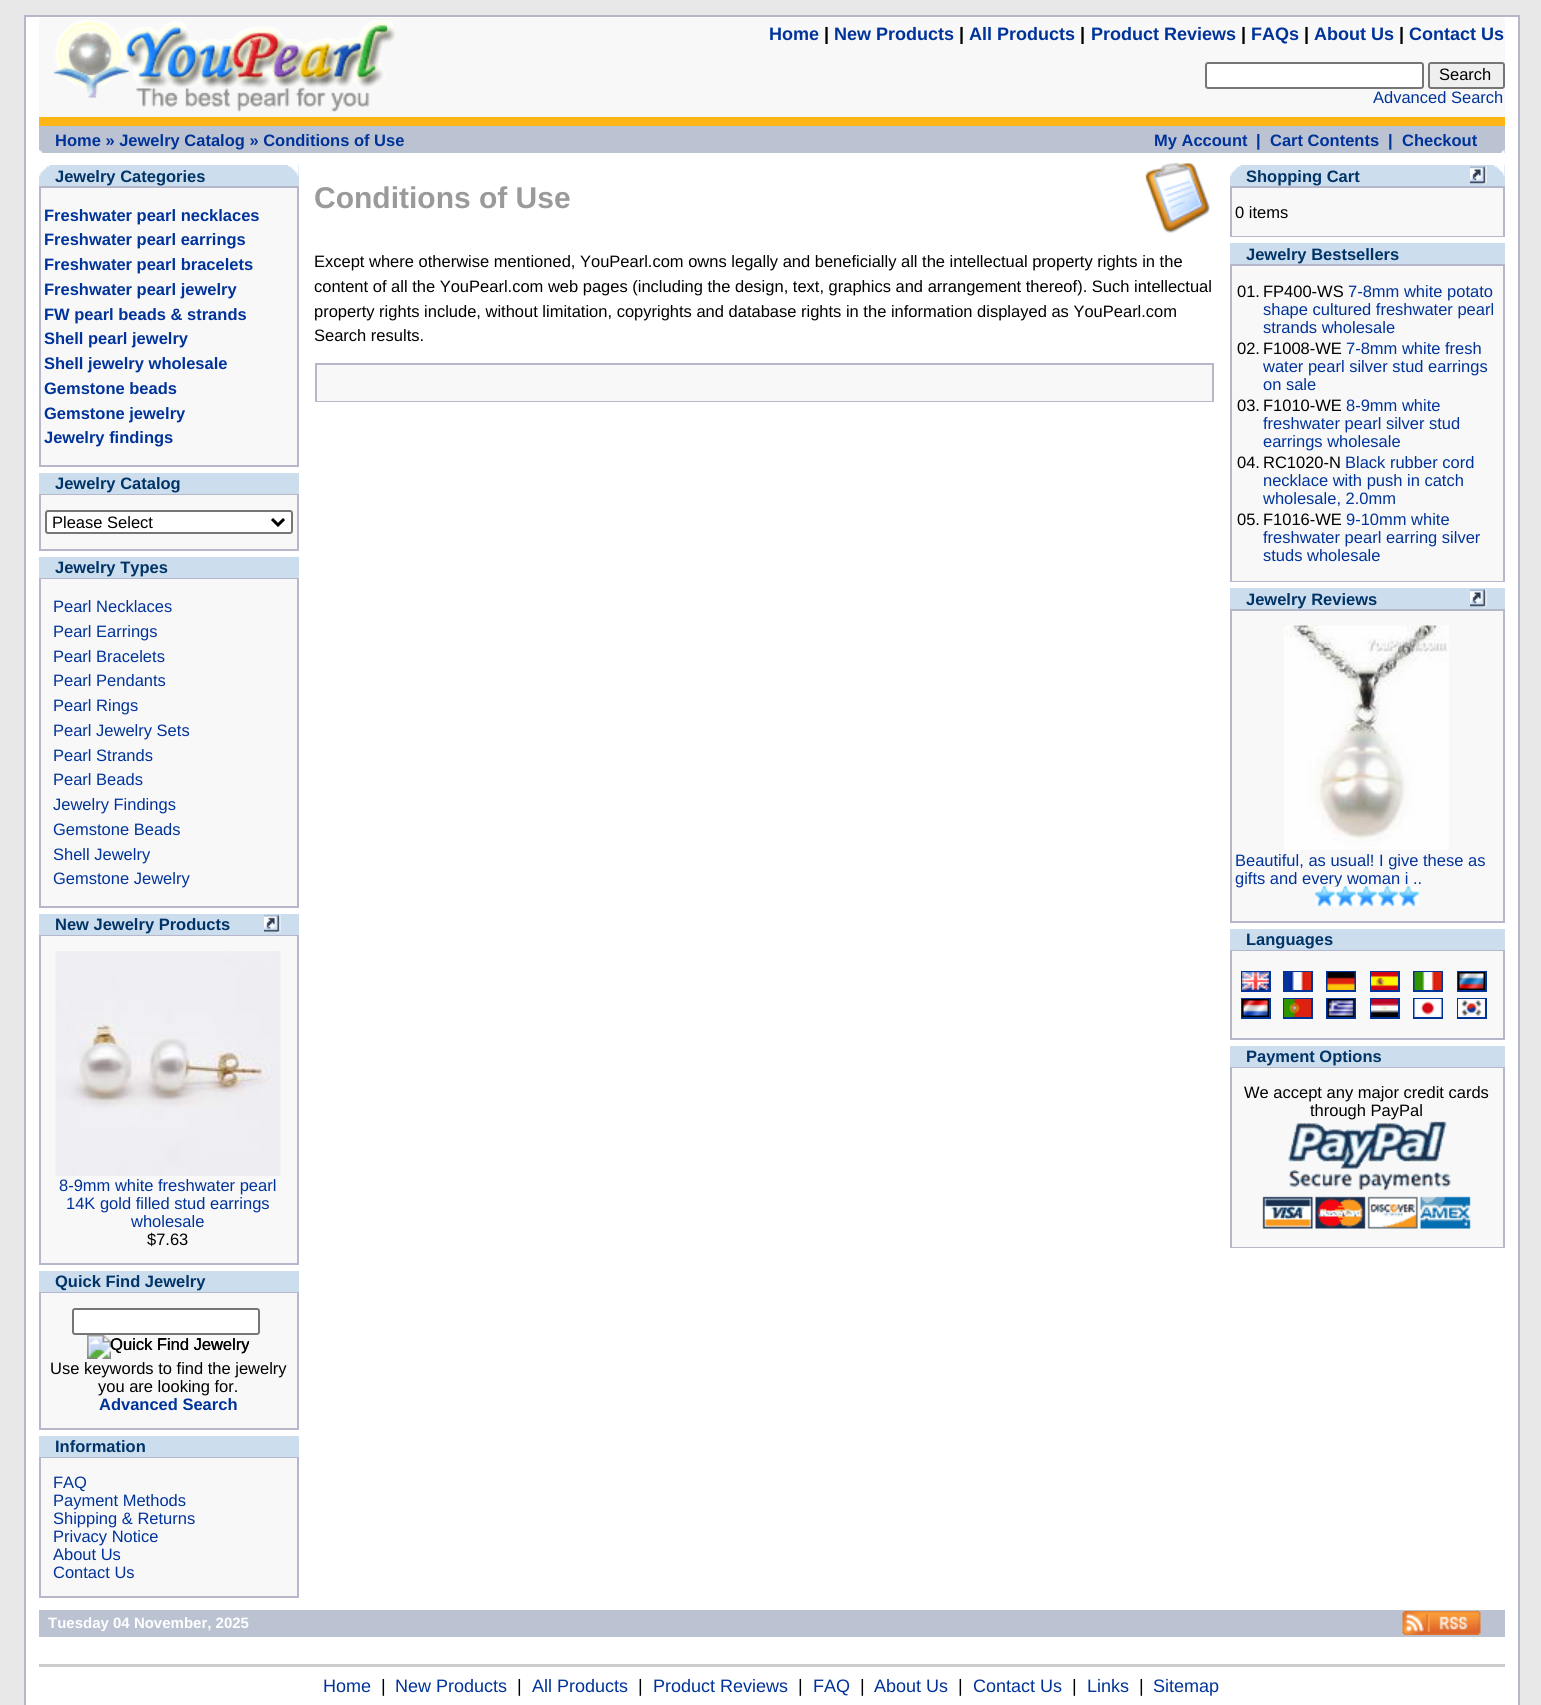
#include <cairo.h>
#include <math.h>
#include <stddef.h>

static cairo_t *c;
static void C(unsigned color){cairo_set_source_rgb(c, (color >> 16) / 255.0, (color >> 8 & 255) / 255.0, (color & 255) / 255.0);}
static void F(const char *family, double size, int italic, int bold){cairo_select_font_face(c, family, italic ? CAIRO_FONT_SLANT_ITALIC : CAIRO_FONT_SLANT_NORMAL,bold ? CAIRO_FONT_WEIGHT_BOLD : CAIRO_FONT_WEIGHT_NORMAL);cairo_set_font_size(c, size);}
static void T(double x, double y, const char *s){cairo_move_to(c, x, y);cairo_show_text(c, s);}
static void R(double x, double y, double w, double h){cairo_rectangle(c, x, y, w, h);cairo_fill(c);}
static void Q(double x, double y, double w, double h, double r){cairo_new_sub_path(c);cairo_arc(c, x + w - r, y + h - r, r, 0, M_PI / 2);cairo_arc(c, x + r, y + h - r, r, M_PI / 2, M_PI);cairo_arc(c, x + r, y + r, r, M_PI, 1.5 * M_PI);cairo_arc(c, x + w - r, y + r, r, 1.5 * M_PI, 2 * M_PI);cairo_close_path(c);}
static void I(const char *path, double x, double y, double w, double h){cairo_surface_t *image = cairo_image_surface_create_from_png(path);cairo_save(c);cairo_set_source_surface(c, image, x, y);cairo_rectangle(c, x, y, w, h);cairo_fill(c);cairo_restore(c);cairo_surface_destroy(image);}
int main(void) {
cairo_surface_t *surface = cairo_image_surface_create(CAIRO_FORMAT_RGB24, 1541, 1705);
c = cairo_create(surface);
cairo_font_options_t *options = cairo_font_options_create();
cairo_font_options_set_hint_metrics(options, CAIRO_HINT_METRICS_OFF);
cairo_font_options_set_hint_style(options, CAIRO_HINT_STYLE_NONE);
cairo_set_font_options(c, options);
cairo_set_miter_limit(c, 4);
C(0xe8e8e8);
cairo_paint(c);
C(0xffffff);
cairo_rectangle(c,25,16,1494,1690);
cairo_fill_preserve(c);
C(0xb6b7cb);
cairo_stroke(c);
C(0xf8f8f9);
R(39,18,1466,99);
I("1.png",53,20,343,92);
F("Liberation Sans",18,0,1);
C(0x003399);
T(769,40,"Home");
C(0x000000);
T(824,40,"|");
C(0x003399);
T(834,40,"New Products");
C(0x000000);
T(959,40,"|");
C(0x003399);
T(969,40,"All Products");
C(0x000000);
T(1080,40,"|");
C(0x003399);
T(1091,40,"Product Reviews");
C(0x000000);
T(1241,40,"|");
C(0x003399);
T(1251,40,"FAQs");
C(0x000000);
T(1304,40,"|");
C(0x003399);
T(1314,40,"About Us");
C(0x000000);
T(1399,40,"|");
C(0x003399);
T(1409,40,"Contact Us");
C(0xffffff);
Q(1206,63,217,25,2);
cairo_fill_preserve(c);
C(0x767676);
cairo_stroke(c);
C(0xefefef);
Q(1429,63,75,25,2);
cairo_fill_preserve(c);
C(0x767676);
cairo_stroke(c);
F("Liberation Sans",16.5,0,0);
C(0x000000);
T(1439,80,"Search");
C(0x003399);
T(1373,103,"Advanced Search");
C(0xffb515);
R(39,117,1466,9);
C(0xbbc3d3);
R(39,126,1466,27);
F("Liberation Sans",16.5,0,1);
C(0x003399);
T(55,146,"Home » Jewelry Catalog » Conditions of Use");
T(1154,146,"My Account");
T(1256,146,"|");
T(1270,146,"Cart Contents");
T(1388,146,"|");
T(1402,146,"Checkout");
I("2.png",39,149,4,4);
I("3.png",1501,149,4,4);
C(0xccddee);
R(39,165,260,21);
I("4.png",39,165,11,11);
C(0x003366);
T(55,182,"Jewelry Categories");
I("5.png",287,165,12,11);
C(0xb6b7cb);
R(39,186,260,281);
C(0xf8f8f9);
R(41,188,256,277);
C(0x003399);
T(44,221,"Freshwater pearl necklaces");
T(44,245,"Freshwater pearl earrings");
T(44,270,"Freshwater pearl bracelets");
T(44,295,"Freshwater pearl jewelry");
T(44,320,"FW pearl beads & strands");
T(44,344,"Shell pearl jewelry");
T(44,369,"Shell jewelry wholesale");
T(44,394,"Gemstone beads");
T(44,419,"Gemstone jewelry");
T(44,443,"Jewelry findings");
C(0xccddee);
R(39,473,260,21);
C(0x003366);
T(55,489,"Jewelry Catalog");
C(0xb6b7cb);
R(39,494,260,57);
C(0xf8f8f9);
R(41,495,256,54);
C(0xffffff);
Q(46,511,246,22,2);
cairo_fill_preserve(c);
C(0x767676);
cairo_stroke(c);
cairo_new_path(c);
cairo_move_to(c,272,519);
cairo_line_to(c,278,525);
cairo_line_to(c,284,519);
C(0x000000);
cairo_set_line_width(c,3);
cairo_stroke(c);
F("Liberation Sans",16.5,0,0);
T(52,528,"Please Select");
C(0xccddee);
R(39,557,260,21);
F("Liberation Sans",16.5,0,1);
C(0x003366);
T(55,573,"Jewelry Types");
C(0xb6b7cb);
R(39,578,260,330);
C(0xf8f8f9);
R(41,579,256,327);
F("Liberation Sans",16.5,0,0);
C(0x003399);
T(53,612,"Pearl Necklaces");
T(53,637,"Pearl Earrings");
T(53,662,"Pearl Bracelets");
T(53,686,"Pearl Pendants");
T(53,711,"Pearl Rings");
T(53,736,"Pearl Jewelry Sets");
T(53,761,"Pearl Strands");
T(53,785,"Pearl Beads");
T(53,810,"Jewelry Findings");
T(53,835,"Gemstone Beads");
T(53,860,"Shell Jewelry");
T(53,884,"Gemstone Jewelry");
C(0xccddee);
R(39,914,260,21);
F("Liberation Sans",16.5,0,1);
C(0x003366);
T(55,930,"New Jewelry Products");
I("6.png",264,914,17,20);
C(0xb6b7cb);
R(39,935,260,330);
C(0xf8f8f9);
R(41,936,256,327);
I("7.png",55,951,226,225);
F("Liberation Sans",16.5,0,0);
C(0x003399);
T(59,1191,"8-9mm white freshwater pearl");
T(66,1209,"14K gold filled stud earrings");
T(131,1227,"wholesale");
C(0x000000);
T(147,1245,"$7.63");
C(0xccddee);
R(39,1271,260,21);
F("Liberation Sans",16.5,0,1);
C(0x003366);
T(55,1287,"Quick Find Jewelry");
C(0xb6b7cb);
R(39,1292,260,138);
C(0xf8f8f9);
R(41,1293,256,135);
C(0xffffff);
Q(73,1309,186,25,2);
cairo_fill_preserve(c);
C(0x767676);
cairo_set_line_width(c,2);
cairo_stroke(c);
I("8.png",87,1335,162,24);
F("Liberation Sans",16.5,0,0);
C(0x000000);
T(110,1350,"Quick Find Jewelry");
T(50,1374,"Use keywords to find the jewelry");
T(98,1392,"you are looking for.");
F("Liberation Sans",16.5,0,1);
C(0x003399);
T(99,1410,"Advanced Search");
C(0xccddee);
R(39,1436,260,21);
C(0x003366);
T(55,1452,"Information");
C(0xb6b7cb);
R(39,1457,260,141);
C(0xf8f8f9);
R(41,1458,256,138);
F("Liberation Sans",16.5,0,0);
C(0x003399);
T(53,1488,"FAQ");
T(53,1506,"Payment Methods");
T(53,1524,"Shipping & Returns");
T(53,1542,"Privacy Notice");
T(53,1560,"About Us");
T(53,1578,"Contact Us");
F("Liberation Sans",30,0,1);
C(0x9a9a9a);
T(314,208,"Conditions of Use");
I("9.png",1145,162,66,71);
F("Liberation Sans",16.5,0,0);
C(0x000000);
T(314,267,"Except where otherwise mentioned, YouPearl.com owns legally and beneficially all the intellectual property rights in the");
T(314,292,"content of all the YouPearl.com web pages (including the design, text, graphics and arrangement thereof). Such intellectual");
T(314,317,"property rights include, without limitation, copyrights and database rights in the information displayed as YouPearl.com");
T(314,341,"Search results.");
C(0xb6b7cb);
R(315,363,899,39);
C(0xf8f8f9);
R(317,365,895,36);
C(0xccddee);
R(1230,165,275,21);
I("10.png",1230,165,11,11);
F("Liberation Sans",16.5,0,1);
C(0x003366);
T(1246,182,"Shopping Cart");
I("11.png",1470,166,17,19);
I("5.png",1493,165,12,11);
C(0xb6b7cb);
R(1230,186,275,51);
C(0xf8f8f9);
R(1232,188,271,48);
F("Liberation Sans",16.5,0,0);
C(0x000000);
T(1235,218,"0 items");
C(0xccddee);
R(1230,243,275,21);
F("Liberation Sans",16.5,0,1);
C(0x003366);
T(1246,260,"Jewelry Bestsellers");
C(0xb6b7cb);
R(1230,264,275,318);
C(0xf8f8f9);
R(1232,266,271,315);
F("Liberation Sans",16.5,0,0);
C(0x000000);
T(1237,297,"01.");
T(1263,297,"FP400-WS");
C(0x003399);
T(1348,297,"7-8mm white potato");
T(1263,315,"shape cultured freshwater pearl");
T(1263,333,"strands wholesale");
C(0x000000);
T(1237,354,"02.");
T(1263,354,"F1008-WE");
C(0x003399);
T(1346,354,"7-8mm white fresh");
T(1263,372,"water pearl silver stud earrings");
T(1263,390,"on sale");
C(0x000000);
T(1237,411,"03.");
T(1263,411,"F1010-WE");
C(0x003399);
T(1346,411,"8-9mm white");
T(1263,429,"freshwater pearl silver stud");
T(1263,447,"earrings wholesale");
C(0x000000);
T(1237,468,"04.");
T(1263,468,"RC1020-N");
C(0x003399);
T(1345,468,"Black rubber cord");
T(1263,486,"necklace with push in catch");
T(1263,504,"wholesale, 2.0mm");
C(0x000000);
T(1237,525,"05.");
T(1263,525,"F1016-WE");
C(0x003399);
T(1346,525,"9-10mm white");
T(1263,543,"freshwater pearl earring silver");
T(1263,561,"studs wholesale");
C(0xccddee);
R(1230,588,275,21);
F("Liberation Sans",16.5,0,1);
C(0x003366);
T(1246,605,"Jewelry Reviews");
I("11.png",1470,589,17,19);
C(0xb6b7cb);
R(1230,609,275,314);
C(0xf8f8f9);
R(1232,611,271,310);
I("12.png",1284,625,165,225);
F("Liberation Sans",16.5,0,0);
C(0x003399);
T(1235,866,"Beautiful, as usual! I give these as");
T(1235,884,"gifts and every woman i ..");
I("13.png",1315,886,104,20);
C(0xccddee);
R(1230,929,275,21);
F("Liberation Sans",16.5,0,1);
C(0x003366);
T(1246,945,"Languages");
C(0xb6b7cb);
R(1230,950,275,90);
C(0xf8f8f9);
R(1232,951,271,87);
cairo_rectangle(c,1242,972,28,19);
C(0x003399);
cairo_stroke(c);
I("14.png",1242,972,27,18);
cairo_rectangle(c,1284,972,28,19);
cairo_stroke(c);
I("15.png",1284,972,27,18);
cairo_rectangle(c,1327,972,28,19);
cairo_stroke(c);
I("16.png",1327,972,28,18);
cairo_rectangle(c,1371,972,28,19);
cairo_stroke(c);
I("17.png",1371,972,27,18);
cairo_rectangle(c,1414,972,28,19);
cairo_stroke(c);
I("18.png",1414,972,28,18);
cairo_rectangle(c,1458,972,28,19);
cairo_stroke(c);
I("19.png",1458,972,27,18);
cairo_rectangle(c,1242,999,28,19);
cairo_stroke(c);
I("20.png",1242,999,27,18);
cairo_rectangle(c,1284,999,28,19);
cairo_stroke(c);
I("21.png",1284,999,27,18);
cairo_rectangle(c,1327,999,28,19);
cairo_stroke(c);
I("22.png",1327,999,28,18);
cairo_rectangle(c,1371,999,28,19);
cairo_stroke(c);
I("23.png",1371,999,27,18);
cairo_rectangle(c,1414,999,28,19);
cairo_stroke(c);
I("24.png",1414,999,28,18);
cairo_rectangle(c,1458,999,28,19);
cairo_stroke(c);
I("25.png",1458,999,27,18);
C(0xccddee);
R(1230,1046,275,21);
C(0x003366);
T(1246,1062,"Payment Options");
C(0xb6b7cb);
R(1230,1067,275,181);
C(0xf8f8f9);
R(1232,1068,271,179);
F("Liberation Sans",16.5,0,0);
C(0x000000);
T(1244,1098,"We accept any major credit cards");
T(1310,1116,"through PayPal");
I("26.png",1262,1121,209,108);
C(0xbbc3d3);
R(39,1610,1466,27);
F("Liberation Sans",15,0,1);
C(0xffffff);
T(48,1628,"Tuesday 04 November, 2025");
I("27.png",1402,1611,79,24);
C(0xcccccc);
R(39,1664,1466,3);
F("Liberation Sans",18,0,0);
C(0x003399);
T(323,1692,"Home");
C(0x000000);
T(381,1692,"|");
C(0x003399);
T(395,1692,"New Products");
C(0x000000);
T(517,1692,"|");
C(0x003399);
T(532,1692,"All Products");
C(0x000000);
T(638,1692,"|");
C(0x003399);
T(653,1692,"Product Reviews");
C(0x000000);
T(798,1692,"|");
C(0x003399);
T(813,1692,"FAQ");
C(0x000000);
T(860,1692,"|");
C(0x003399);
T(874,1692,"About Us");
C(0x000000);
T(958,1692,"|");
C(0x003399);
T(973,1692,"Contact Us");
C(0x000000);
T(1072,1692,"|");
C(0x003399);
T(1087,1692,"Links");
C(0x000000);
T(1139,1692,"|");
C(0x003399);
T(1153,1692,"Sitemap");
cairo_surface_write_to_png(surface, "o.png");
cairo_font_options_destroy(options);
cairo_destroy(c);
cairo_surface_destroy(surface);
return 0;
}
